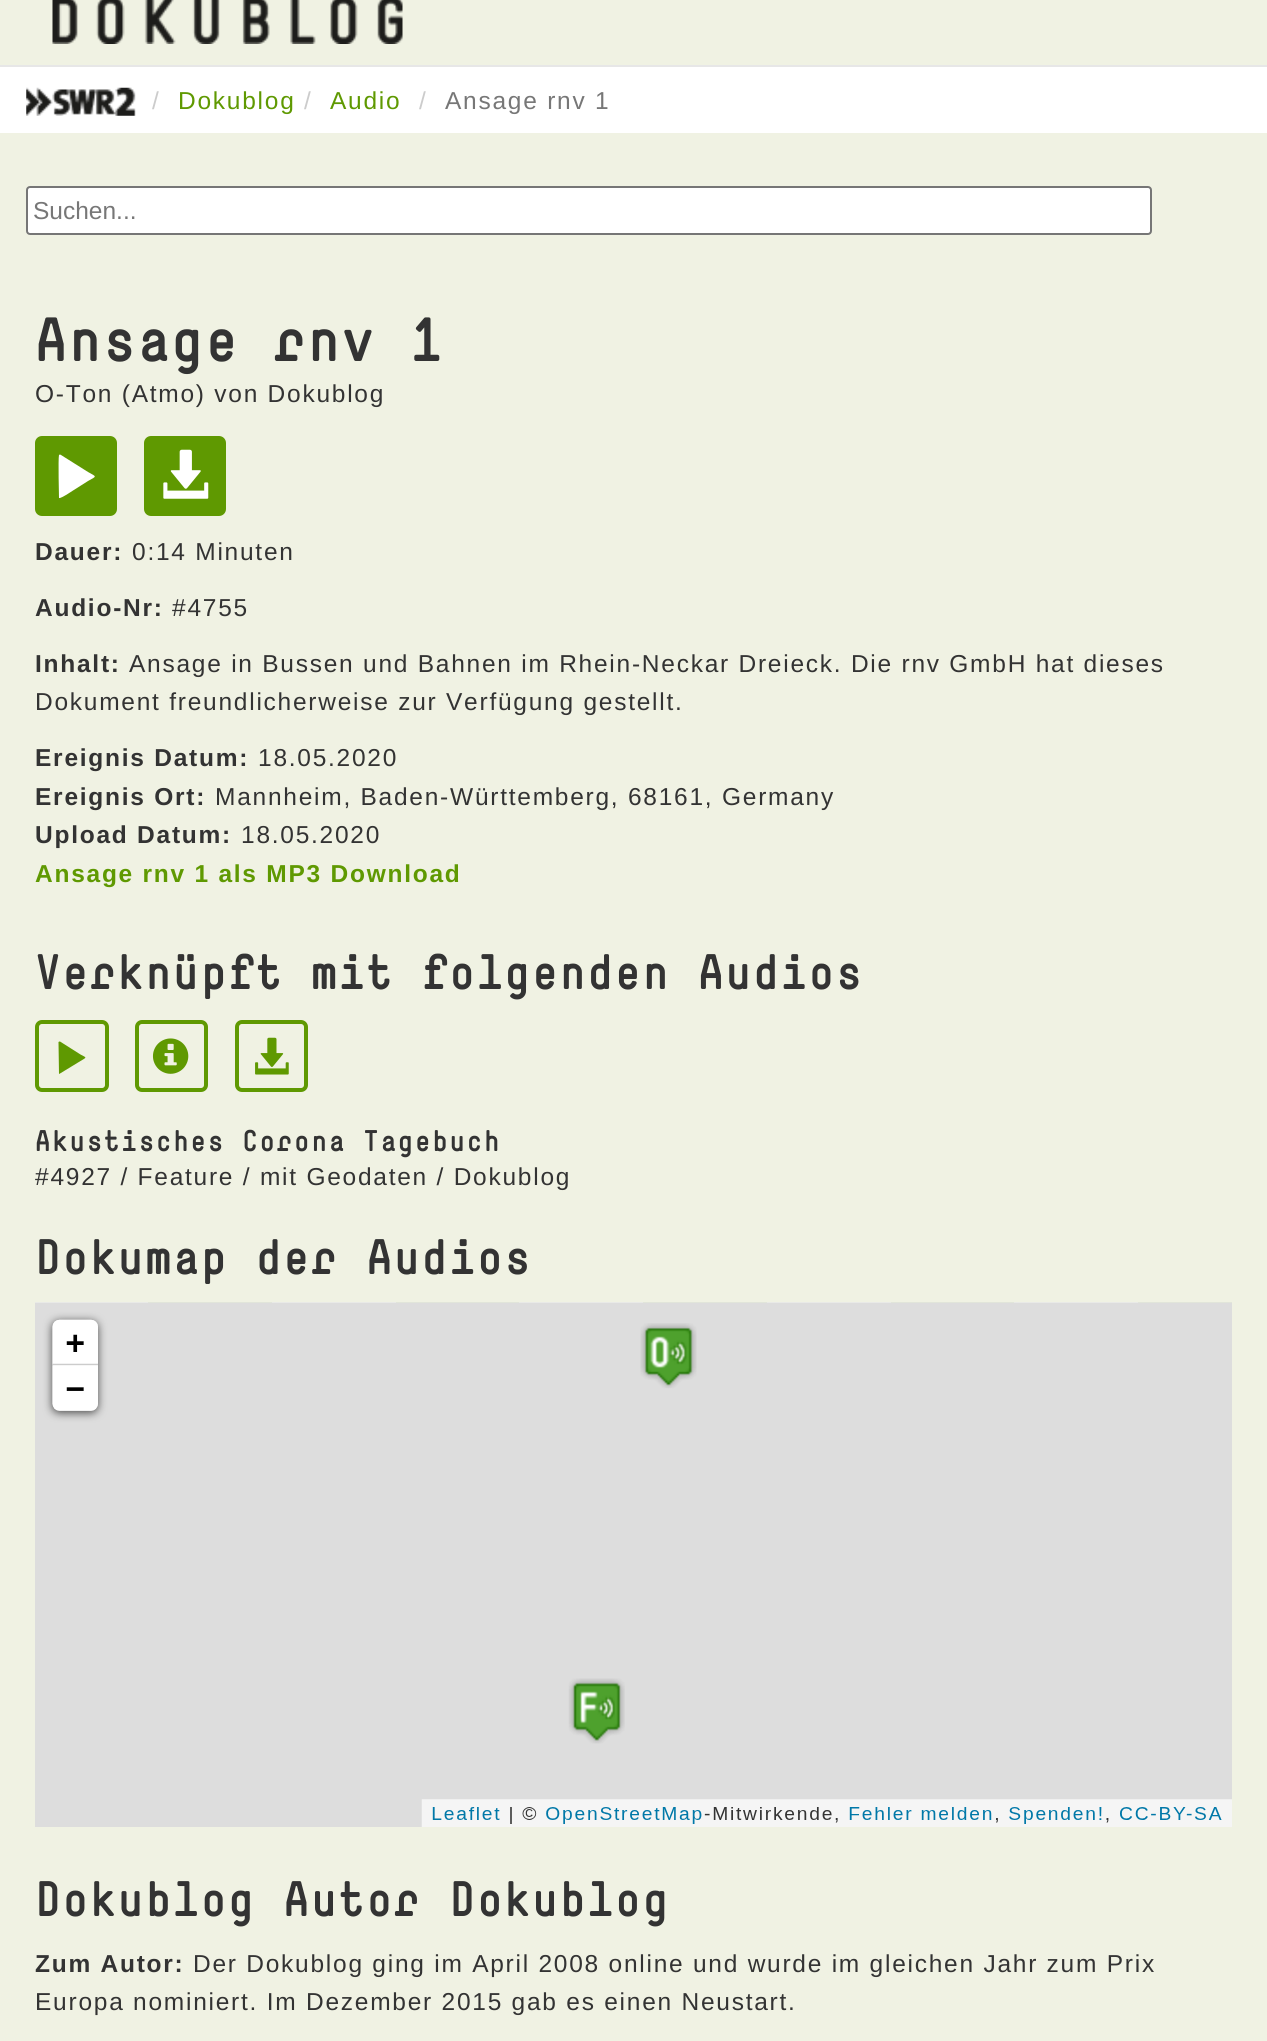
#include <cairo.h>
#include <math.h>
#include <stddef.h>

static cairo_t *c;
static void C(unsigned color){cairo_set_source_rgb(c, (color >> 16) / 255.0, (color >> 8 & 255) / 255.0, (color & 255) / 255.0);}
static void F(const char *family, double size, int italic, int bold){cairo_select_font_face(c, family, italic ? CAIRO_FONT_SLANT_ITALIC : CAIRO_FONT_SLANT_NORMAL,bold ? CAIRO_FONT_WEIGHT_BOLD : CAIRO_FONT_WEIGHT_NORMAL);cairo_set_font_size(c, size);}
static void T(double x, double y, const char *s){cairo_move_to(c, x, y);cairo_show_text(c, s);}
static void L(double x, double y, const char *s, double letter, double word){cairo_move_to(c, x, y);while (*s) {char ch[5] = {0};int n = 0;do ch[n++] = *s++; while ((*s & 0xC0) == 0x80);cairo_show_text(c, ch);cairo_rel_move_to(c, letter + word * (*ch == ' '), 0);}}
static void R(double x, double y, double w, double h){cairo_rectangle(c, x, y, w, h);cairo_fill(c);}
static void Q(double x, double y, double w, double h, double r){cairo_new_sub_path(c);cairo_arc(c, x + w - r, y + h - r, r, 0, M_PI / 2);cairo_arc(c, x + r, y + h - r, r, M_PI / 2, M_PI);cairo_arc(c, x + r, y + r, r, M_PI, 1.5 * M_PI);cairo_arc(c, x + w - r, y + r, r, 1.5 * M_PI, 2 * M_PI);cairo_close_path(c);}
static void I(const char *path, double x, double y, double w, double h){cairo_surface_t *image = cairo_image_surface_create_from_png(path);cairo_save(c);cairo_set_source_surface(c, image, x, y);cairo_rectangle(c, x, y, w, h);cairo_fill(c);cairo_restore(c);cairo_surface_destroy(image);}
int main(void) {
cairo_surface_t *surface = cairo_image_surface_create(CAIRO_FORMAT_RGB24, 1267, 2041);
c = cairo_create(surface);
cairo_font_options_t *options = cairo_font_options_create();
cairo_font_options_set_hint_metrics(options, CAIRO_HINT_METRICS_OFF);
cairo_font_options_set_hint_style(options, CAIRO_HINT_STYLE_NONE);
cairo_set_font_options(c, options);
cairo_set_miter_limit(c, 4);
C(0xffffff);
cairo_paint(c);
C(0xf0f2e3);
R(0,0,1267,65);
C(0xe7e7e7);
R(0,65,1267,2);
I("1.png",52,0,351,44);
I("2.png",26,87,110,29);
F("Liberation Sans",24.5,0,0);
C(0xcccccc);
L(152,109,"/",1.75,0);
C(0x5f9901);
L(178,109,"Dokublog",1.75,0);
C(0xcccccc);
L(304,109,"/",1.75,0);
C(0x5f9901);
L(330,109,"Audio",1.75,0);
C(0xcccccc);
L(419,109,"/",1.75,0);
C(0x777777);
L(445,109,"Ansage rnv 1",1.75,0);
C(0xf0f2e3);
R(0,133,1267,1908);
C(0xffffff);
Q(27,187,1124,47,3);
cairo_fill_preserve(c);
C(0x767676);
cairo_stroke(c);
C(0x777777);
T(33,219,"Suchen...");
F("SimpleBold",61.25,0,1);
C(0x333333);
L(35,361,"Ansage rnv 1",1.75,0);
F("Liberation Sans",24.5,0,0);
L(35,402,"O-Ton (Atmo) von Dokublog",1.75,0);
C(0x5f9901);
Q(35,436,82,80,7);
cairo_fill(c);
C(0xffffff);
cairo_new_path(c);
cairo_move_to(c,61,455);
cairo_line_to(c,88,472);
cairo_curve_to(c,97,477,97,476,88,481);
cairo_line_to(c,77,488);
cairo_curve_to(c,75,489,61,499,59,498);
cairo_curve_to(c,59,497,58,459,59,455);
cairo_curve_to(c,59,455,60,454,61,455);
cairo_close_path(c);
cairo_fill(c);
C(0x5f9901);
Q(144,436,82,80,7);
cairo_fill(c);
I("3.png",163,449,46,50);
F("Liberation Sans",24.5,0,1);
C(0x333333);
L(35,560,"Dauer:",1.75,0);
F("Liberation Sans",24.5,0,0);
L(132,560,"0:14 Minuten",1.75,0);
F("Liberation Sans",24.5,0,1);
L(35,616,"Audio-Nr:",1.75,0);
F("Liberation Sans",24.5,0,0);
L(172,616,"#4755",1.75,0);
F("Liberation Sans",24.5,0,1);
L(35,672,"Inhalt:",1.75,0);
F("Liberation Sans",24.5,0,0);
L(129,672,"Ansage in Bussen und Bahnen im Rhein-Neckar Dreieck. Die rnv GmbH hat dieses",1.75,0);
L(35,710,"Dokument freundlicherweise zur Verfügung gestellt.",1.75,0);
F("Liberation Sans",24.5,0,1);
L(35,766,"Ereignis Datum:",1.75,0);
F("Liberation Sans",24.5,0,0);
L(258,766,"18.05.2020",1.75,0);
F("Liberation Sans",24.5,0,1);
L(35,805,"Ereignis Ort:",1.75,0);
F("Liberation Sans",24.5,0,0);
L(215,805,"Mannheim, Baden-Württemberg, 68161, Germany",1.75,0);
F("Liberation Sans",24.5,0,1);
L(35,843,"Upload Datum:",1.75,0);
F("Liberation Sans",24.5,0,0);
L(241,843,"18.05.2020",1.75,0);
F("Liberation Sans",24.5,0,1);
C(0x5f9901);
L(35,882,"Ansage rnv 1 als MP3 Download",1.75,0);
F("SimpleBold",49,0,1);
C(0x333333);
L(35,989,"Verknüpft mit folgenden Audios",1.75,0);
Q(37,1022,70,68,5);
C(0x5f9901);
cairo_set_line_width(c,4);
cairo_stroke(c);
cairo_new_path(c);
cairo_move_to(c,60,1041.5);
cairo_line_to(c,80.5,1054.5);
cairo_curve_to(c,87,1058,87,1057,80.5,1061);
cairo_line_to(c,60,1073.5);
cairo_line_to(c,59,1074);
cairo_line_to(c,58.5,1042);
cairo_curve_to(c,59,1041.5,59.5,1041.5,60,1041.5);
cairo_close_path(c);
cairo_fill(c);
Q(137,1022,69,68,5);
cairo_stroke(c);
I("4.png",152,1038,37,36);
Q(237,1022,69,68,5);
cairo_stroke(c);
I("5.png",255,1037,34,38);
F("SimpleBold",29.4,0,1);
C(0x333333);
L(35,1151,"Akustisches Corona Tagebuch",1.75,0);
F("Liberation Sans",24.5,0,0);
L(35,1185,"#4927 / Feature / mit Geodaten / Dokublog",1.75,0);
F("SimpleBold",49,0,1);
L(35,1274,"Dokumap der Audios",1.75,0);
I("6.png",35,1302,1197,525);
L(35,1916,"Dokublog Autor Dokublog",1.75,0);
F("Liberation Sans",24.5,0,1);
L(35,1972,"Zum Autor:",1.75,0);
F("Liberation Sans",24.5,0,0);
L(193,1972,"Der Dokublog ging im April 2008 online und wurde im gleichen Jahr zum Prix",1.75,0);
L(35,2010,"Europa nominiert. Im Dezember 2015 gab es einen Neustart.",1.75,0);
cairo_surface_write_to_png(surface, "o.png");
cairo_font_options_destroy(options);
cairo_destroy(c);
cairo_surface_destroy(surface);
return 0;
}
